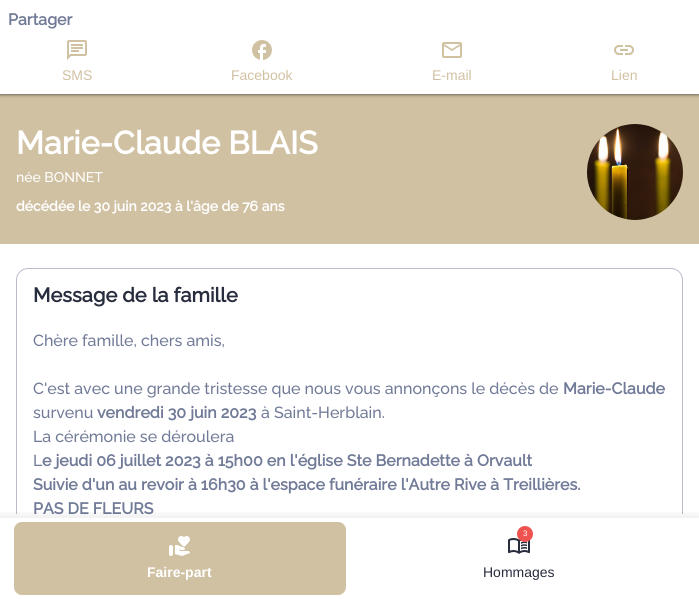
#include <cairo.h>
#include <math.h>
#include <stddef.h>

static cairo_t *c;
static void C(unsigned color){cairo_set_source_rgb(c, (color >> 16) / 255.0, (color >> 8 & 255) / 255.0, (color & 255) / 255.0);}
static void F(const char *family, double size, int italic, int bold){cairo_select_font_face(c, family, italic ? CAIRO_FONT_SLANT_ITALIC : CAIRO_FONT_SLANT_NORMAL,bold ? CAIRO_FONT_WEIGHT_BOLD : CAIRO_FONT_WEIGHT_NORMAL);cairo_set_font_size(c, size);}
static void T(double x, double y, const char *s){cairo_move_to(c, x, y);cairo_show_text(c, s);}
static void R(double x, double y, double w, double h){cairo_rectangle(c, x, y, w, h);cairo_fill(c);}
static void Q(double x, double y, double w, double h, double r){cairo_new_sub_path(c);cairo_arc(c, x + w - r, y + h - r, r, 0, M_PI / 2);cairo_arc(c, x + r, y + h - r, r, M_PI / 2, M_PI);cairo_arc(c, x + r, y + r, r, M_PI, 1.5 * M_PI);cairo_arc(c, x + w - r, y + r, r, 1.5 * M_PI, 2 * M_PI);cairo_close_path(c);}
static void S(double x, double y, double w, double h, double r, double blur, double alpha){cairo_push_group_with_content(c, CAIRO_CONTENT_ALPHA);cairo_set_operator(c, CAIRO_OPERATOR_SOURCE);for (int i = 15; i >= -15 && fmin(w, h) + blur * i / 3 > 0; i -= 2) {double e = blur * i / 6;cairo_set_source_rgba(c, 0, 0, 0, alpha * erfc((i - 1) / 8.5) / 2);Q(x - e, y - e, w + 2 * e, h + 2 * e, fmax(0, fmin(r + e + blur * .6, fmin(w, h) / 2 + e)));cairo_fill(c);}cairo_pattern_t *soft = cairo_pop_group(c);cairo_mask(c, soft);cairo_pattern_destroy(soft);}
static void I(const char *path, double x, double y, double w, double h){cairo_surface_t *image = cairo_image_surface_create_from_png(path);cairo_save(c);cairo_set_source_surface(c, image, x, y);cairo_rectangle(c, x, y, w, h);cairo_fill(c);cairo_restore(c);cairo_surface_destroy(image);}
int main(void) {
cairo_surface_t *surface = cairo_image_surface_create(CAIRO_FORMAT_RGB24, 699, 599);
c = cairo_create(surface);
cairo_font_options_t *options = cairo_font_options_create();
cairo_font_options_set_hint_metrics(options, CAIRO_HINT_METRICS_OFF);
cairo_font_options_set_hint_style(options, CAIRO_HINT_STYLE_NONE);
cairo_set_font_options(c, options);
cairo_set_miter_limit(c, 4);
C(0xffffff);
cairo_paint(c);
C(0xd1c1a3);
R(0,94,699,150);
C(0x000000);
S(-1,0,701,96,0,1.5,.15);
S(0,1,699,94,0,1,.3);
C(0xffffff);
R(0,0,699,94);
F("Raleway",16,0,1);
C(0x717b98);
T(8,25,"Partager");
I("1.png",67,40,20,20);
F("Liberation Sans",14,0,0);
C(0xd1c1a3);
T(62,80,"SMS");
I("2.png",252,40,20,20);
T(231,80,"Facebook");
I("3.png",442,42,20,16);
T(432,80,"E-mail");
I("4.png",614,45,20,10);
T(611,80,"Lien");
F("Raleway",32,0,1);
C(0xffffff);
T(16,154,"Marie-Claude BLAIS");
F("Raleway Thin",14,0,0);
T(16,182,"née BONNET");
F("Raleway",14,0,1);
T(16,211,"décédée le 30 juin 2023 à l'âge de 76 ans");
I("5.png",587,124,96,96);
cairo_save(c);
cairo_rectangle(c,0,0,699,514);
cairo_clip(c);
Q(16.5,268.5,666,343,11.5);
C(0xb9bdcb);
cairo_set_line_width(c,1);
cairo_stroke(c);
cairo_restore(c);
F("Raleway",20,0,1);
C(0x282d3e);
T(33,302,"Message de la famille");
F("Raleway Thin",16,0,0);
C(0x717b98);
T(33,346,"Chère famille, chers amis,");
T(33,394,"C'est avec une grande tristesse que nous vous annonçons le décès de");
F("Raleway",16,0,1);
T(563,394,"Marie-Claude");
F("Raleway Thin",16,0,0);
T(33,418,"survenu");
F("Raleway",16,0,1);
T(97,418,"vendredi 30 juin 2023");
F("Raleway Thin",16,0,0);
T(261,418,"à Saint-Herblain.");
T(33,442,"La cérémonie se déroulera");
T(33,466,"L");
F("Raleway",16,0,1);
T(42,466,"e jeudi 06 juillet 2023 à 15h00 en l'église Ste Bernadette à Orvault");
T(33,490,"Suivie d'un au revoir à 16h30 à l'espace funéraire l'Autre Rive à Treillières.");
T(33,514,"PAS DE FLEURS");
cairo_save(c);
cairo_rectangle(c,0,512,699,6);
cairo_clip(c);
C(0x000000);
S(0,522,699,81,0,8,.2);
cairo_restore(c);
C(0xd1c1a3);
Q(14,522,332,73,8);
cairo_fill(c);
I("6.png",169,536,21,20);
F("Liberation Sans",14,0,1);
C(0xffffff);
T(147,577,"Faire-part");
I("7.png",508,538,22,16);
C(0xef5350);
cairo_arc(c,525,534,8,0,2 * M_PI);
cairo_fill(c);
F("Liberation Sans",8,0,0);
C(0xffffff);
T(523,536,"3");
F("Liberation Sans",14,0,0);
C(0x282d3e);
T(483,577,"Hommages");
cairo_surface_write_to_png(surface, "o.png");
cairo_font_options_destroy(options);
cairo_destroy(c);
cairo_surface_destroy(surface);
return 0;
}
